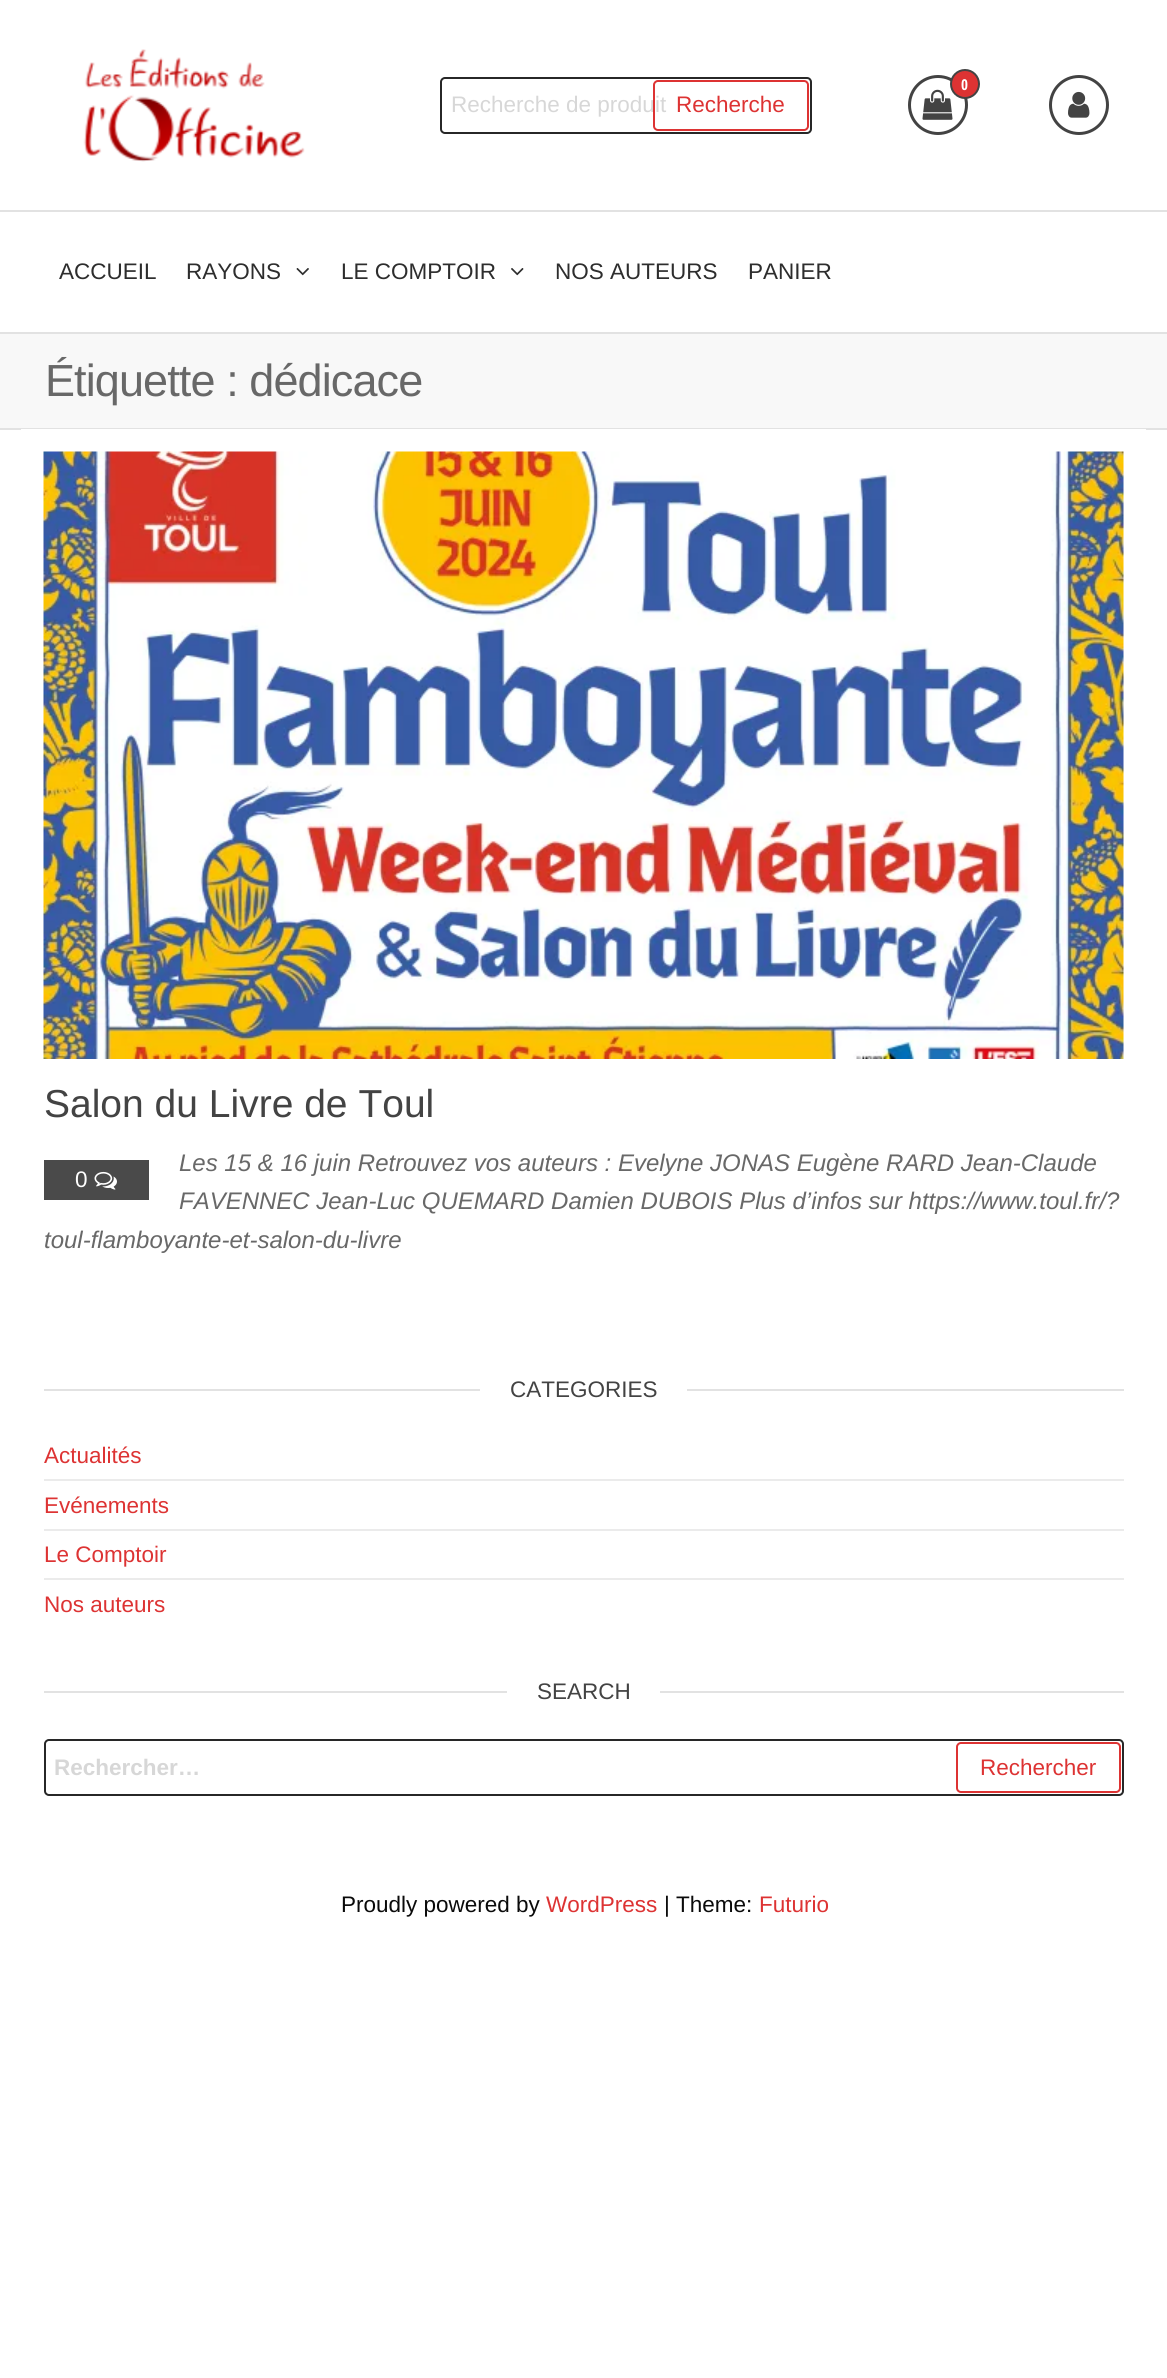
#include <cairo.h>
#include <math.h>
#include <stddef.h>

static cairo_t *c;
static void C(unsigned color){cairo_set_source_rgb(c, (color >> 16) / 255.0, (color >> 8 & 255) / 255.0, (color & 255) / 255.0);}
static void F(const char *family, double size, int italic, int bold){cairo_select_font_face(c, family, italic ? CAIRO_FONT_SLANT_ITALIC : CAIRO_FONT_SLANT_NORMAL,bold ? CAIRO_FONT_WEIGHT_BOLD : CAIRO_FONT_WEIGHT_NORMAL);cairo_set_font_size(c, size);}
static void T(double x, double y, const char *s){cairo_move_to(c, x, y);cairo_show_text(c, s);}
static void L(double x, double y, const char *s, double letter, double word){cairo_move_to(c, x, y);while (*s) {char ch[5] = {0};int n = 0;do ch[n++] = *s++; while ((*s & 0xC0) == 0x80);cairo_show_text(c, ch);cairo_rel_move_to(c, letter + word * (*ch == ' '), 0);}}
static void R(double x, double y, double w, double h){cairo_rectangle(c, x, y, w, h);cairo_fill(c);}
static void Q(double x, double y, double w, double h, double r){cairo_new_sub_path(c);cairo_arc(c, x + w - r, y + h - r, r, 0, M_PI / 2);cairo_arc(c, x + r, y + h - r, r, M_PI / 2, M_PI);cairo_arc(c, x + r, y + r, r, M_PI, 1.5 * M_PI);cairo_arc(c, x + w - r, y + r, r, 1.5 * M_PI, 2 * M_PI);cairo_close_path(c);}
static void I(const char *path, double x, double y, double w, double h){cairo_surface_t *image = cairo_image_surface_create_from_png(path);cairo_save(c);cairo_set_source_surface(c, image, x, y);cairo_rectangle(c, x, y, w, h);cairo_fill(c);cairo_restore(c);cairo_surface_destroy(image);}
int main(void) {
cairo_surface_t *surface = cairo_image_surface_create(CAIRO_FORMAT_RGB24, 1167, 2378);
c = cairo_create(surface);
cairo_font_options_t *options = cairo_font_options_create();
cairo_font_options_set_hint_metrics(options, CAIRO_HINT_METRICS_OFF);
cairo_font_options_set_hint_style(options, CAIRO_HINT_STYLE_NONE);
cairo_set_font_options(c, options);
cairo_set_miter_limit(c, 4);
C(0xffffff);
cairo_paint(c);
C(0xe2e2e2);
R(0,210,1167,2);
I("1.png",83,49,222,113);
cairo_arc(c,938,105,28.5,0,2 * M_PI);
C(0x434343);
cairo_set_line_width(c,3);
cairo_stroke(c);
I("2.png",922,89,31,31);
C(0xdd3333);
cairo_arc(c,965,84,14,0,2 * M_PI);
cairo_fill_preserve(c);
C(0x434343);
cairo_set_line_width(c,2);
cairo_stroke(c);
F("Open Sans Condensed",15,0,1);
C(0xffffff);
T(961,90,"0");
cairo_new_path(c);
cairo_arc(c,1079,105,28.5,0,2 * M_PI);
C(0x434343);
cairo_set_line_width(c,3);
cairo_stroke(c);
I("3.png",1068,91,22,27);
Q(441,78,370,55,4);
C(0x272727);
cairo_set_line_width(c,2);
cairo_stroke(c);
F("Liberation Sans",22.5,0,0);
C(0xd7d7d7);
T(451,112,"Recherche de produit");
Q(654,81,154,49,4);
C(0xdd3333);
cairo_stroke(c);
T(676,112,"Recherche");
C(0xe2e2e2);
R(0,332,1167,2);
C(0x2d2d2d);
T(59,279,"ACCUEIL");
T(186,279,"RAYONS");
I("4.png",296,268,13,8);
T(341,279,"LE COMPTOIR");
I("5.png",511,268,13,8);
T(555,279,"NOS AUTEURS");
T(748,279,"PANIER");
C(0xf8f8f8);
R(0,334,1167,94);
C(0xe2e2e2);
R(0,428,1167,2);
F("Liberation Sans",45,0,0);
C(0x686868);
L(45,396,"Étiquette : dédicace",-.9,0);
C(0xffffff);
R(21,429,1125,1);
I("6.png",43,451,1081,608);
F("Liberation Sans",39,0,0);
C(0x434343);
T(44,1117,"Salon du Livre de Toul");
F("Liberation Sans",24,1,0);
C(0x686868);
T(179,1171,"Les 15 & 16 juin Retrouvez vos auteurs : Evelyne JONAS Eugène RARD Jean-Claude");
T(179,1209,"FAVENNEC Jean-Luc QUEMARD Damien DUBOIS Plus d’infos sur https://www.toul.fr/?");
T(44,1248,"toul-flamboyante-et-salon-du-livre");
C(0x4a4a4a);
R(44,1160,105,40);
F("Liberation Sans",22.5,0,0);
C(0xffffff);
T(75,1187,"0");
I("7.png",94,1171,23,19);
C(0xe2e2e2);
R(44,1389,1080,2);
C(0xffffff);
R(480,1389,207,2);
C(0x434343);
T(510,1397,"CATEGORIES");
C(0xebebeb);
R(44,1479,1080,2);
C(0xdd3333);
T(44,1463,"Actualités");
C(0xebebeb);
R(44,1529,1080,2);
C(0xdd3333);
T(44,1513,"Evénements");
C(0xebebeb);
R(44,1578,1080,2);
C(0xdd3333);
T(44,1562,"Le Comptoir");
T(44,1612,"Nos auteurs");
C(0xe2e2e2);
R(44,1691,1080,2);
C(0xffffff);
R(507,1691,153,2);
C(0x434343);
T(537,1699,"SEARCH");
Q(45,1740,1078,55,4);
C(0x272727);
cairo_stroke(c);
F("Liberation Sans",22.5,0,1);
C(0xd7d7d7);
T(54,1775,"Rechercher…");
Q(957,1743,163,49,4);
C(0xdd3333);
cairo_stroke(c);
F("Liberation Sans",22.5,0,0);
T(980,1775,"Rechercher");
C(0x0a0a0a);
T(341,1912,"Proudly powered by");
C(0xdd3333);
T(546,1912,"WordPress");
C(0x0a0a0a);
T(664,1912,"| Theme:");
C(0xdd3333);
T(759,1912,"Futurio");
cairo_surface_write_to_png(surface, "o.png");
cairo_font_options_destroy(options);
cairo_destroy(c);
cairo_surface_destroy(surface);
return 0;
}
